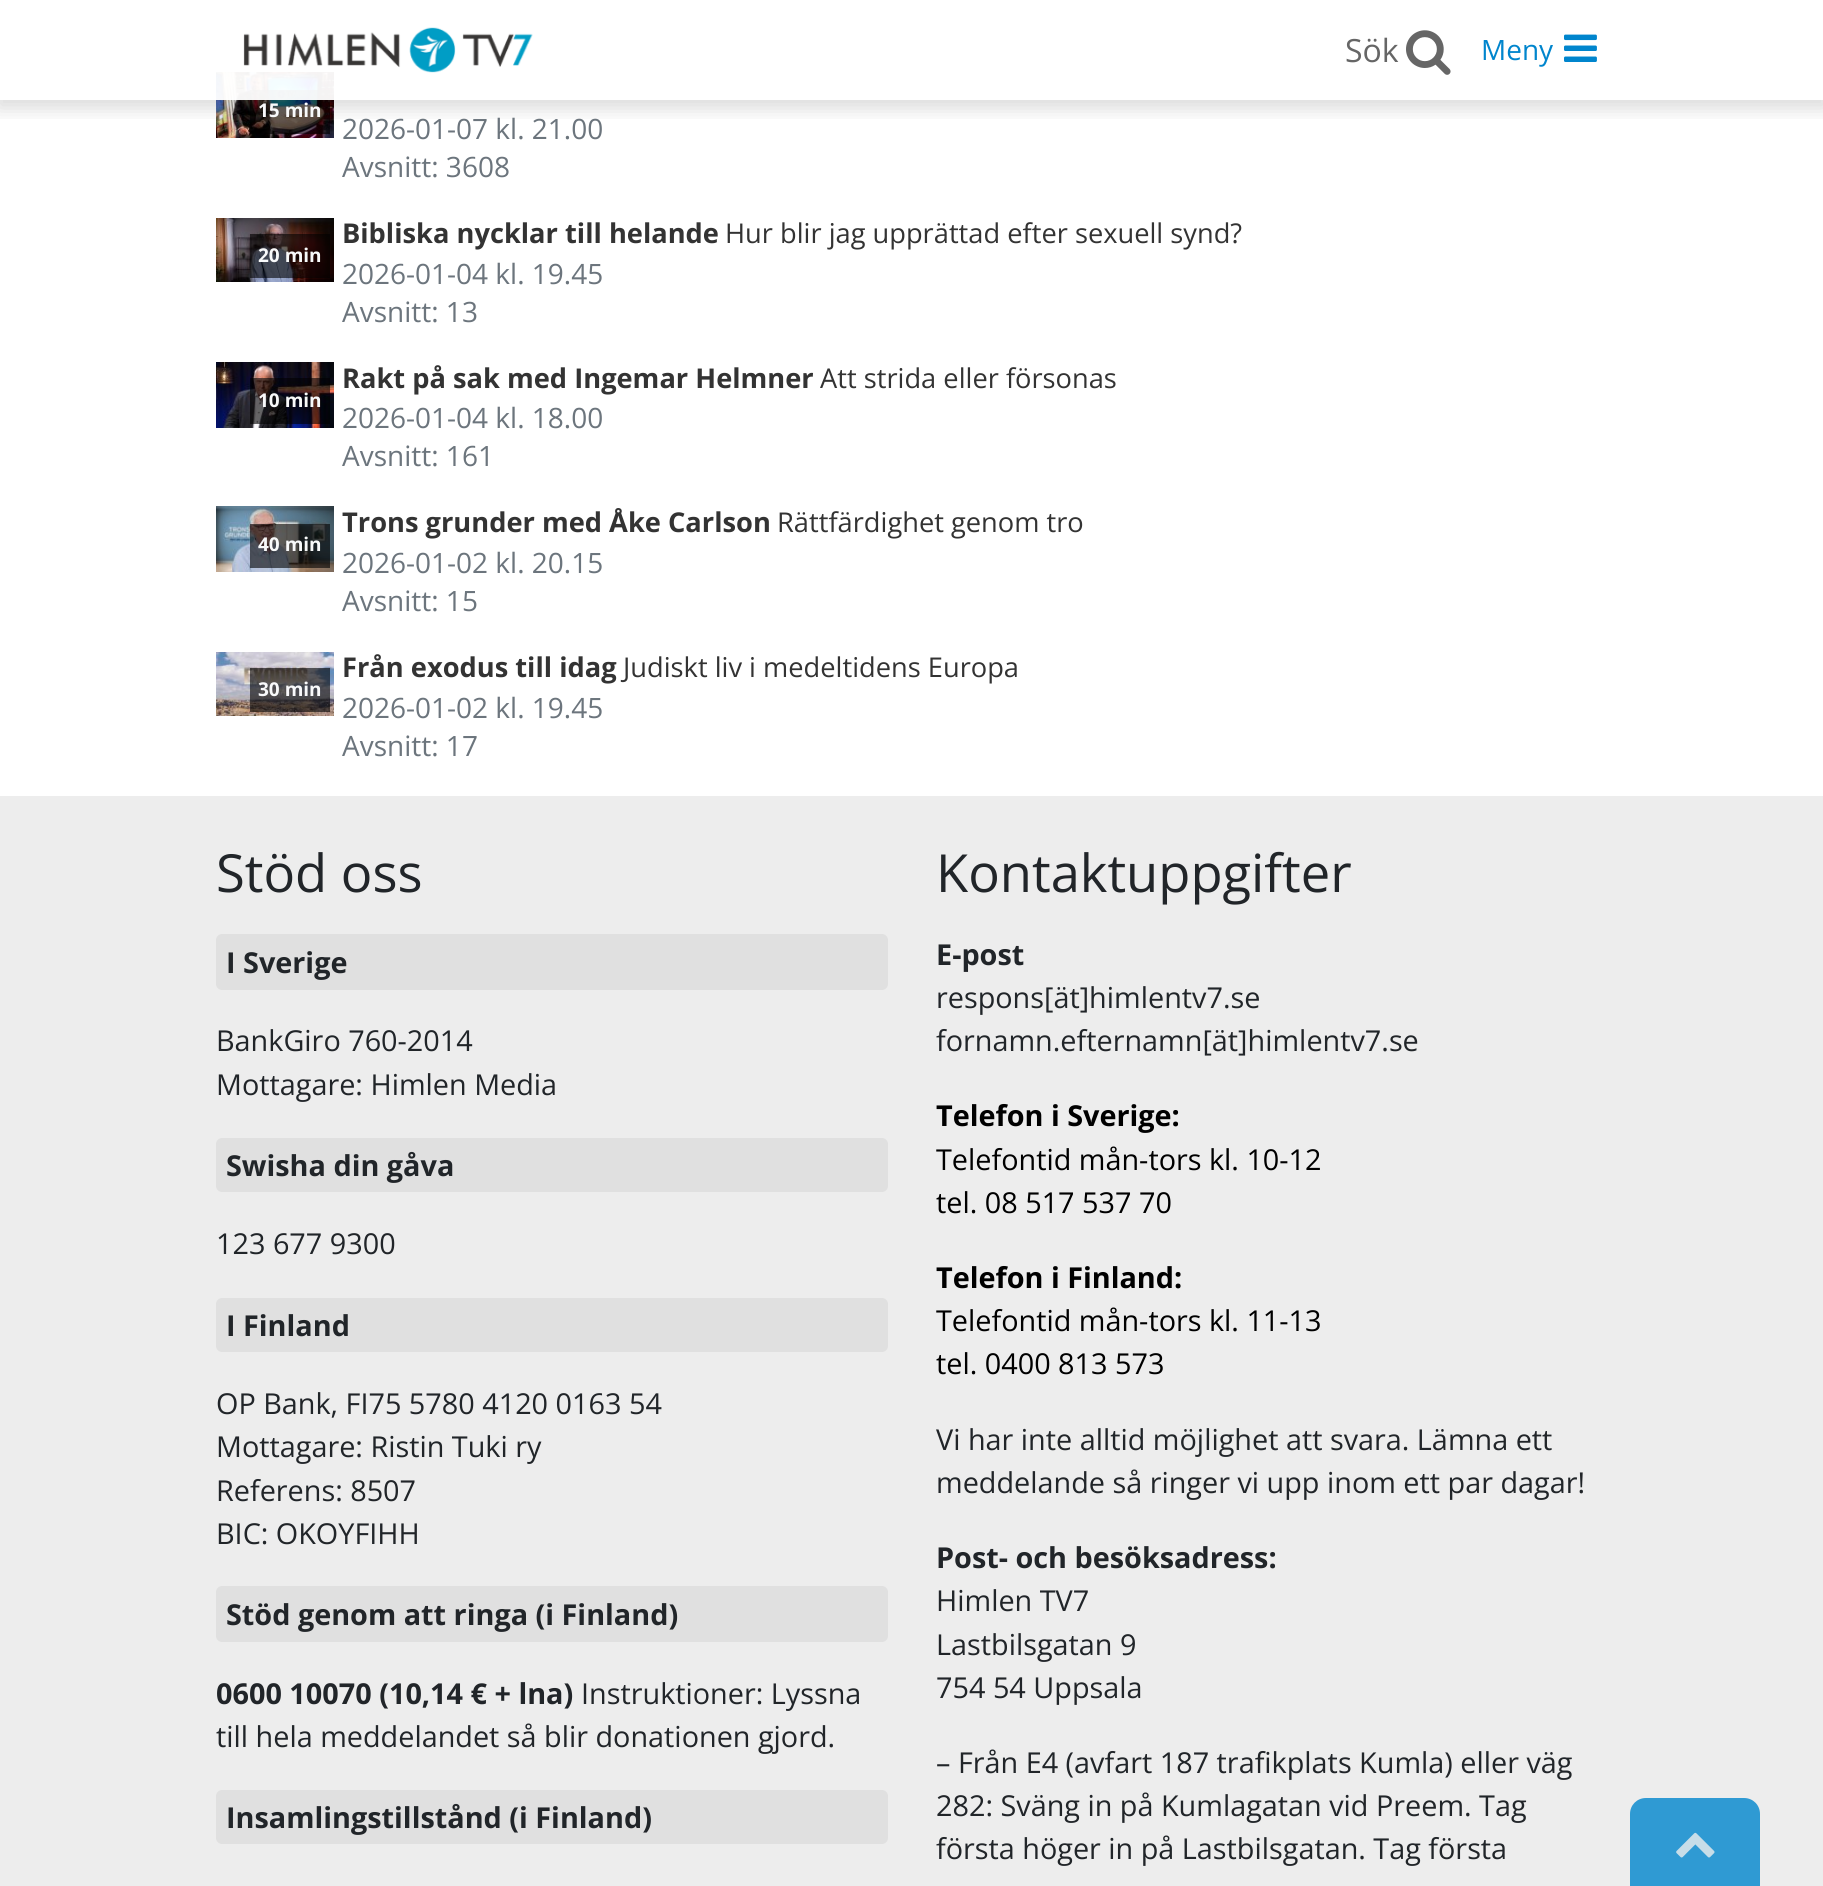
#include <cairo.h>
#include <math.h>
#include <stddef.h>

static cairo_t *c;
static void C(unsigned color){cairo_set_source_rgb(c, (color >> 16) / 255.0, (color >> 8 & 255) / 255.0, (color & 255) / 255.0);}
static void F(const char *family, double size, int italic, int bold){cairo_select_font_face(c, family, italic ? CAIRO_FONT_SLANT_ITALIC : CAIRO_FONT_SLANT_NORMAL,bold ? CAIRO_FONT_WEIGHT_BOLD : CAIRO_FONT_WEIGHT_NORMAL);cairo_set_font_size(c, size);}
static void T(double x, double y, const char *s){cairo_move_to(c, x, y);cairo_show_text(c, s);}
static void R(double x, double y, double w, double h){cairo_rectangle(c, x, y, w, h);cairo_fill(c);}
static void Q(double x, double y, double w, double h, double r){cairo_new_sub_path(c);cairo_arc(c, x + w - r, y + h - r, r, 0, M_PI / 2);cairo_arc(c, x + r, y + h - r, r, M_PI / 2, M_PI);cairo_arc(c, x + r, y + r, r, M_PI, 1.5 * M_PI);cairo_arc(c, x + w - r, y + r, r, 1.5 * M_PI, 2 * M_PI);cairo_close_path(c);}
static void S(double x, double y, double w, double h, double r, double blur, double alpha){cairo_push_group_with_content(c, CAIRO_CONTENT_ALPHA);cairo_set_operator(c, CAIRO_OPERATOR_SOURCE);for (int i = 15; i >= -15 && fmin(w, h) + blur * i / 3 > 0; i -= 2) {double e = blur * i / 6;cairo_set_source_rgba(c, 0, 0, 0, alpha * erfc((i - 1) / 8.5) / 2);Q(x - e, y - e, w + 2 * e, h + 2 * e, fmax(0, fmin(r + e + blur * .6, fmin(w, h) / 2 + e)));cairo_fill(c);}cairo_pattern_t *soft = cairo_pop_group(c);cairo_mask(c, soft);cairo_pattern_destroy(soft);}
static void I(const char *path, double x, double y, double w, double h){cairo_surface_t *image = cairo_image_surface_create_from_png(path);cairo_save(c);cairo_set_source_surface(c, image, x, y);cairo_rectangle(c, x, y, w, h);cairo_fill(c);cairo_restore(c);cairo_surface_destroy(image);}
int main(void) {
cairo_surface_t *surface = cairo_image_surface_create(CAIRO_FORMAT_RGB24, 1823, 1886);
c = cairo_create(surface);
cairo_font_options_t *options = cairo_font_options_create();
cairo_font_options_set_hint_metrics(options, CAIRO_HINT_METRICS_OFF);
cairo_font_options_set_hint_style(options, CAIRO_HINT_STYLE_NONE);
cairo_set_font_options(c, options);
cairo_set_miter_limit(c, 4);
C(0xffffff);
cairo_paint(c);
I("4.png",216,72,118,66);
cairo_set_source_rgba(c,0,0,0,0.6);
R(250,90,80,44);
cairo_save(c);
cairo_rectangle(c,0,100,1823,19);
cairo_clip(c);
C(0x000000);
S(-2,4,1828,104,0,10,.15);
cairo_restore(c);
cairo_set_source_rgba(c,1,1,1,0.95);
R(216,72,118,28);
I("1.png",243,27,290,46);
F("Open Sans",32,0,0);
C(0x666666);
T(1345,62,"Sök");
I("2.png",1406,30,45,45);
F("Open Sans",28,0,0);
C(0x0085cd);
T(1481,60,"Meny");
I("3.png",1564,34,33,28);
F("Open Sans",19,0,1);
C(0xf8f9fa);
T(258,117,"15 min");
F("Open Sans",28,0,0);
C(0x6c757d);
T(342,139,"2026-01-07 kl. 21.00");
T(342,177,"Avsnitt: 3608");
I("5.png",216,218,118,64);
cairo_set_source_rgba(c,0,0,0,0.6);
R(250,234,80,44);
F("Open Sans",19,0,1);
C(0xf8f9fa);
T(258,262,"20 min");
F("Open Sans",27.25,0,1);
C(0x333333);
T(342,243,"Bibliska nycklar till helande");
F("Open Sans",27.25,0,0);
T(725,243,"Hur blir jag upprättad efter sexuell synd?");
F("Open Sans",28,0,0);
C(0x6c757d);
T(342,284,"2026-01-04 kl. 19.45");
T(342,322,"Avsnitt: 13");
I("6.png",216,362,118,66);
cairo_set_source_rgba(c,0,0,0,0.6);
R(250,378,80,46);
F("Open Sans",19,0,1);
C(0xf8f9fa);
T(258,407,"10 min");
F("Open Sans",27.25,0,1);
C(0x333333);
T(342,388,"Rakt på sak med Ingemar Helmner");
F("Open Sans",27.25,0,0);
T(820,388,"Att strida eller försonas");
F("Open Sans",28,0,0);
C(0x6c757d);
T(342,428,"2026-01-04 kl. 18.00");
T(342,466,"Avsnitt: 161");
I("7.png",216,506,118,66);
cairo_set_source_rgba(c,0,0,0,0.6);
R(250,524,80,44);
F("Open Sans",19,0,1);
C(0xf8f9fa);
T(258,551,"40 min");
F("Open Sans",27.25,0,1);
C(0x333333);
T(342,532,"Trons grunder med Åke Carlson");
F("Open Sans",27.25,0,0);
T(777,532,"Rättfärdighet genom tro");
F("Open Sans",28,0,0);
C(0x6c757d);
T(342,573,"2026-01-02 kl. 20.15");
T(342,611,"Avsnitt: 15");
I("8.png",216,652,118,64);
cairo_set_source_rgba(c,0,0,0,0.6);
R(250,668,80,44);
F("Open Sans",19,0,1);
C(0xf8f9fa);
T(258,696,"30 min");
F("Open Sans",27.25,0,1);
C(0x333333);
T(342,677,"Från exodus till idag");
F("Open Sans",27.25,0,0);
T(623,677,"Judiskt liv i medeltidens Europa");
F("Open Sans",28,0,0);
C(0x6c757d);
T(342,718,"2026-01-02 kl. 19.45");
T(342,756,"Avsnitt: 17");
C(0xededed);
R(0,796,1823,1090);
F("Open Sans",52.5,0,0);
C(0x212529);
T(216,892,"Stöd oss");
C(0xe0e0e0);
Q(216,934,672,56,6);
cairo_fill(c);
F("Open Sans",28.8,0,1);
C(0x212529);
T(226,973,"I Sverige");
F("Open Sans",28.8,0,0);
T(216,1051,"BankGiro 760-2014");
T(216,1095,"Mottagare: Himlen Media");
C(0xe0e0e0);
Q(216,1138,672,54,6);
cairo_fill(c);
F("Open Sans",28.8,0,1);
C(0x212529);
T(226,1176,"Swisha din gåva");
F("Open Sans",28.8,0,0);
T(216,1254,"123 677 9300");
C(0xe0e0e0);
Q(216,1298,672,54,6);
cairo_fill(c);
F("Open Sans",28.8,0,1);
C(0x212529);
T(226,1336,"I Finland");
F("Open Sans",28.8,0,0);
T(216,1414,"OP Bank, FI75 5780 4120 0163 54");
T(216,1457,"Mottagare: Ristin Tuki ry");
T(216,1501,"Referens: 8507");
T(216,1544,"BIC: OKOYFIHH");
C(0xe0e0e0);
Q(216,1586,672,56,6);
cairo_fill(c);
F("Open Sans",28.8,0,1);
C(0x212529);
T(226,1625,"Stöd genom att ringa (i Finland)");
T(216,1704,"0600 10070 (10,14 € + lna)");
F("Open Sans",28.8,0,0);
T(581,1704,"Instruktioner: Lyssna");
T(216,1747,"till hela meddelandet så blir donationen gjord.");
C(0xe0e0e0);
Q(216,1790,672,54,6);
cairo_fill(c);
F("Open Sans",28.8,0,1);
C(0x212529);
T(226,1828,"Insamlingstillstånd (i Finland)");
F("Open Sans",52.5,0,0);
T(936,892,"Kontaktuppgifter");
F("Open Sans",28.8,0,1);
T(936,965,"E-post");
F("Open Sans",28.8,0,0);
T(936,1008,"respons[ät]himlentv7.se");
T(936,1051,"fornamn.efternamn[ät]himlentv7.se");
F("Open Sans",28.8,0,1);
C(0x000000);
T(936,1126,"Telefon i Sverige:");
F("Open Sans",28.8,0,0);
T(936,1170,"Telefontid mån-tors kl. 10-12");
T(936,1213,"tel. 08 517 537 70");
F("Open Sans",28.8,0,1);
T(936,1288,"Telefon i Finland:");
F("Open Sans",28.8,0,0);
T(936,1331,"Telefontid mån-tors kl. 11-13");
T(936,1374,"tel. 0400 813 573");
C(0x212529);
T(936,1450,"Vi har inte alltid möjlighet att svara. Lämna ett");
T(936,1493,"meddelande så ringer vi upp inom ett par dagar!");
F("Open Sans",28.8,0,1);
T(936,1568,"Post- och besöksadress:");
F("Open Sans",28.8,0,0);
T(936,1611,"Himlen TV7");
T(936,1655,"Lastbilsgatan 9");
T(936,1698,"754 54 Uppsala");
T(936,1773,"– Från E4 (avfart 187 trafikplats Kumla) eller väg");
T(936,1816,"282: Sväng in på Kumlagatan vid Preem. Tag");
T(936,1859,"första höger in på Lastbilsgatan. Tag första");
C(0x2f9ad3);
cairo_new_path(c);
cairo_move_to(c,1646,1798);
cairo_line_to(c,1744,1798);
cairo_curve_to(c,1753,1798,1760,1805,1760,1814);
cairo_line_to(c,1760,1886);
cairo_line_to(c,1630,1886);
cairo_line_to(c,1630,1814);
cairo_curve_to(c,1630,1805,1637,1798,1646,1798);
cairo_close_path(c);
cairo_fill(c);
I("9.png",1676,1832,39,26);
cairo_surface_write_to_png(surface, "o.png");
cairo_font_options_destroy(options);
cairo_destroy(c);
cairo_surface_destroy(surface);
return 0;
}
